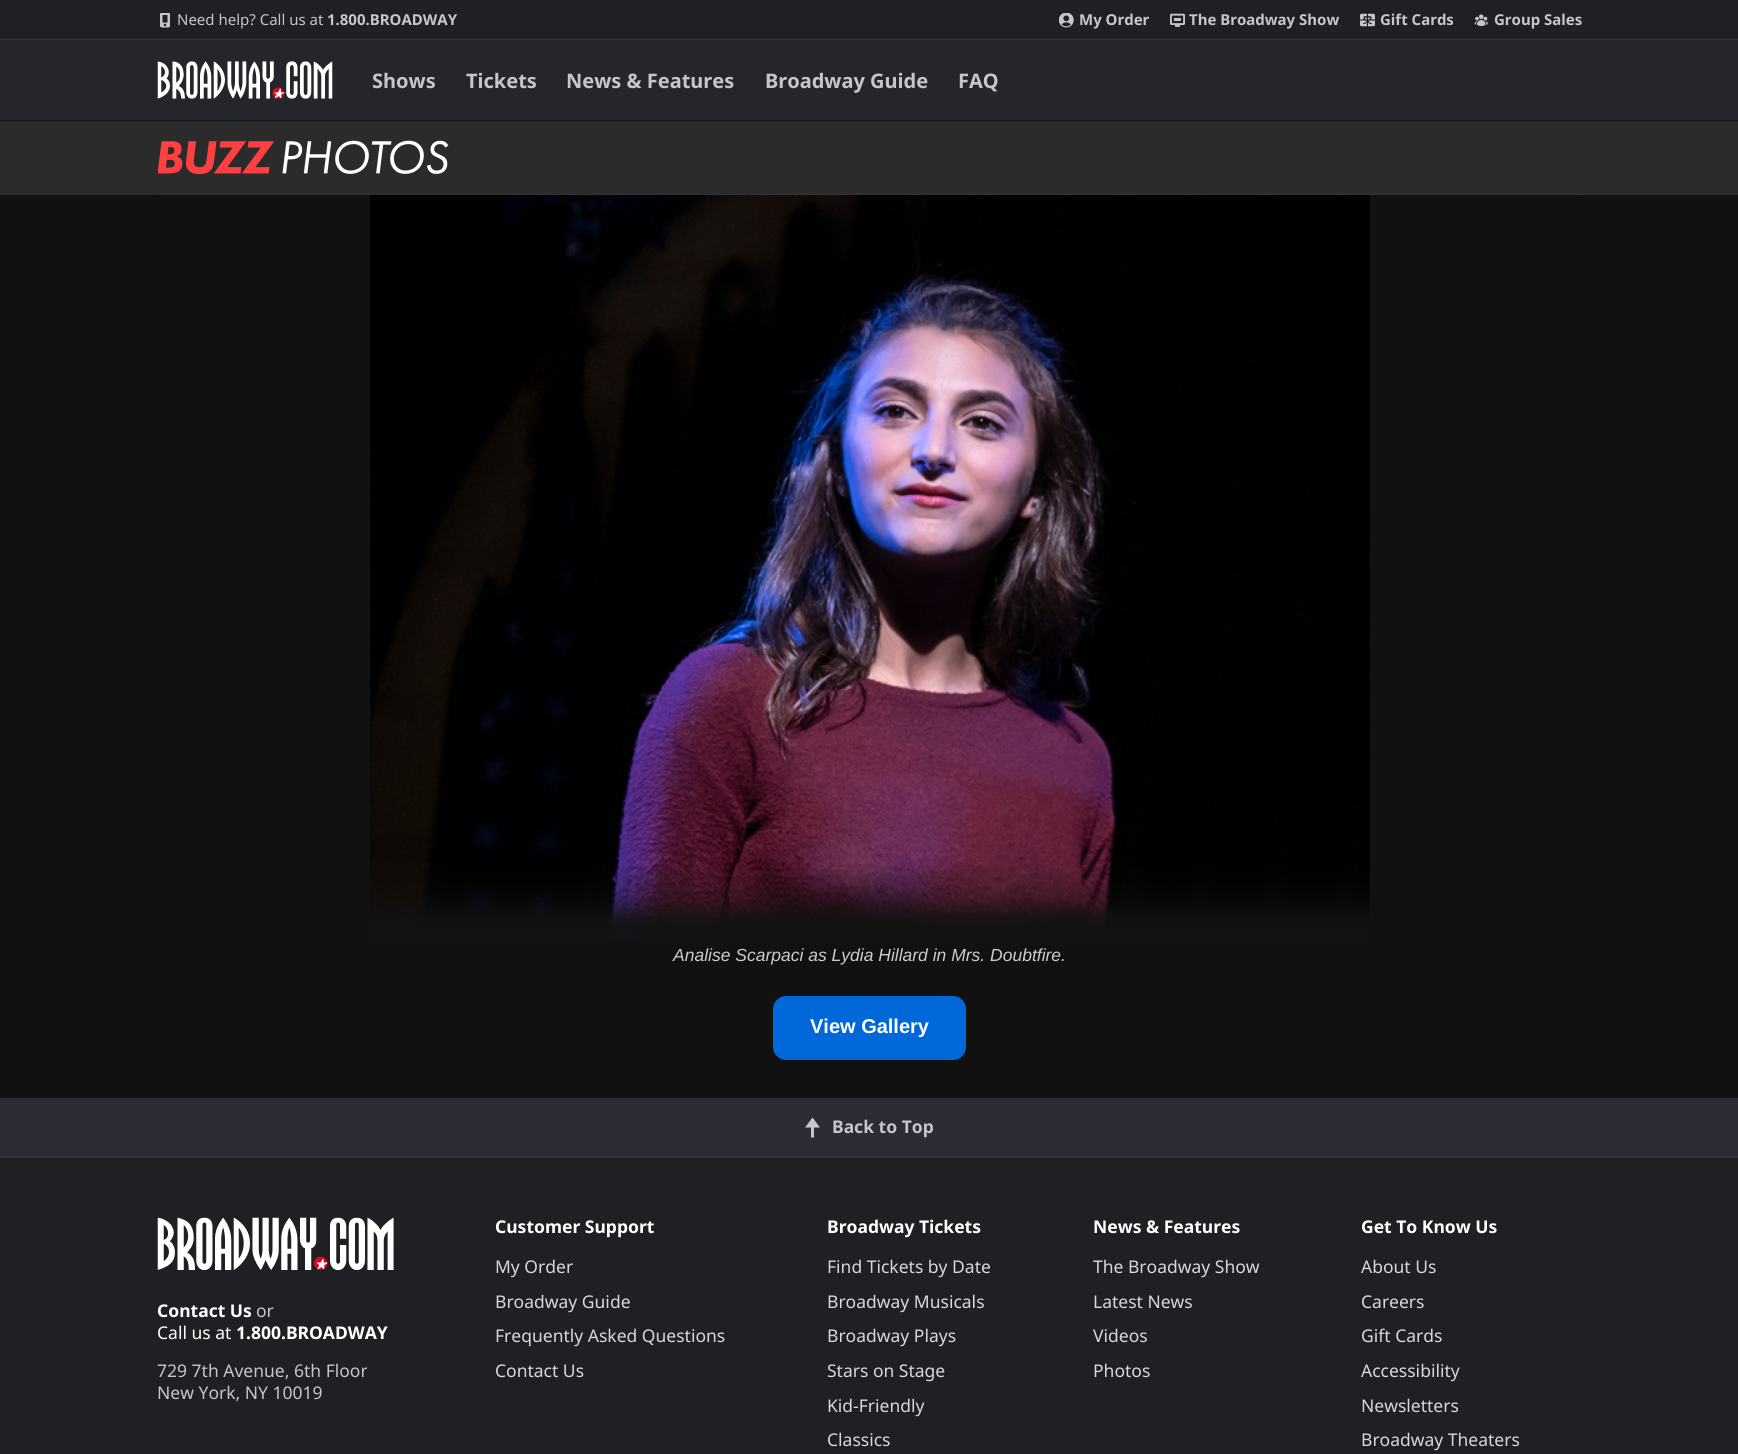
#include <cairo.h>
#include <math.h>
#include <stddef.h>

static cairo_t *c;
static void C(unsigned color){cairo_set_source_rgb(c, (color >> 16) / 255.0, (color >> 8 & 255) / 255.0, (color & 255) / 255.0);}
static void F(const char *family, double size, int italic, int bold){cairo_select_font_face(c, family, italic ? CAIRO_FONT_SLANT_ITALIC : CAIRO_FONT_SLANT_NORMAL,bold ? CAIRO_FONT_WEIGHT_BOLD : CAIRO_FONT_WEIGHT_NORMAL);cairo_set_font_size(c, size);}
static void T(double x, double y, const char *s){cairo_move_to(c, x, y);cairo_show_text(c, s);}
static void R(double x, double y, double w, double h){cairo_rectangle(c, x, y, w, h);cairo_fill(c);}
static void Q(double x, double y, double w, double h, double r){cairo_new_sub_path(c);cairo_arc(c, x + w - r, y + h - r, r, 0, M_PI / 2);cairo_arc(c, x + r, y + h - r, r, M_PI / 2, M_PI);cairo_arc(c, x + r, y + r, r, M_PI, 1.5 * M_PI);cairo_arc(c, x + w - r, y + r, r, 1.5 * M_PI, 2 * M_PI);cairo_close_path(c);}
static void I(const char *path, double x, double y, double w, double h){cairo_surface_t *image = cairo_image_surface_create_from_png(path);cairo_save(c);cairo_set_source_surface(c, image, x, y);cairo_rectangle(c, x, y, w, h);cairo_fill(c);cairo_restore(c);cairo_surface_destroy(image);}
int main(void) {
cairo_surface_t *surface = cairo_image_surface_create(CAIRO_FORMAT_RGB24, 1738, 1454);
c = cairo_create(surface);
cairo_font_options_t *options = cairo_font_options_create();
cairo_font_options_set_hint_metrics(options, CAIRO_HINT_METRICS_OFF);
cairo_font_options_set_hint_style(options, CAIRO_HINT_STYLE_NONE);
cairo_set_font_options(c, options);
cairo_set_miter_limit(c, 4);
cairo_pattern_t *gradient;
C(0x25262b);
cairo_paint(c);
C(0x1f2023);
R(0,0,1738,39);
C(0x343540);
R(0,39,1738,1);
I("1.png",160,13,10,15);
F("Noto Sans",15,0,0);
C(0xc5c6cd);
T(177,25,"Need help? Call us at");
F("Noto Sans",15,0,1);
T(327,25,"1.800.BROADWAY");
I("2.png",1059,13,15,15);
T(1079,25,"My Order");
I("3.png",1170,13,15,14);
T(1189,25,"The Broadway Show");
I("4.png",1360,13,15,14);
T(1380,25,"Gift Cards");
I("5.png",1474,14,14,13);
T(1494,25,"Group Sales");
C(0x161616);
R(0,120,1738,1);
I("6.png",157,61,176,38);
F("Noto Sans",20,0,1);
C(0xc5c6cd);
T(372,88,"Shows");
T(466,88,"Tickets");
T(566,88,"News & Features");
T(765,88,"Broadway Guide");
T(958,88,"FAQ");
C(0x2b2b2b);
R(0,121,1738,74);
I("7.png",158,140,291,35);
C(0x333333);
R(158,194,1425,1);
C(0x111111);
R(0,195,1738,903);
I("8.png",370,195,1000,747);
gradient = cairo_pattern_create_linear(869,946,869,846);
cairo_pattern_add_color_stop_rgba(gradient,0,0.071,0.071,0.071,1);
cairo_pattern_add_color_stop_rgba(gradient,.07,0.071,0.071,0.071,.99);
cairo_pattern_add_color_stop_rgba(gradient,.15,0.071,0.071,0.071,.97);
cairo_pattern_add_color_stop_rgba(gradient,.2,0.071,0.071,0.071,.95);
cairo_pattern_add_color_stop_rgba(gradient,.23,0.071,0.071,0.071,.93);
cairo_pattern_add_color_stop_rgba(gradient,.25,0.071,0.071,0.071,.91);
cairo_pattern_add_color_stop_rgba(gradient,.28,0.071,0.071,0.071,.88);
cairo_pattern_add_color_stop_rgba(gradient,.31,0.071,0.071,0.071,.8);
cairo_pattern_add_color_stop_rgba(gradient,.35,0.071,0.071,0.071,.69);
cairo_pattern_add_color_stop_rgba(gradient,.4,0.071,0.071,0.071,.55);
cairo_pattern_add_color_stop_rgba(gradient,.43,0.071,0.071,0.071,.48);
cairo_pattern_add_color_stop_rgba(gradient,.45,0.071,0.071,0.071,.42);
cairo_pattern_add_color_stop_rgba(gradient,.48,0.071,0.071,0.071,.36);
cairo_pattern_add_color_stop_rgba(gradient,.49,0.071,0.071,0.071,.34);
cairo_pattern_add_color_stop_rgba(gradient,.55,0.071,0.071,0.071,.26);
cairo_pattern_add_color_stop_rgba(gradient,.58,0.071,0.071,0.071,.22);
cairo_pattern_add_color_stop_rgba(gradient,.65,0.071,0.071,0.071,.15);
cairo_pattern_add_color_stop_rgba(gradient,.72,0.071,0.071,0.071,.1);
cairo_pattern_add_color_stop_rgba(gradient,.78,0.071,0.071,0.071,.06);
cairo_pattern_add_color_stop_rgba(gradient,.85,0.071,0.071,0.071,.01);
cairo_pattern_add_color_stop_rgba(gradient,1,0.071,0.071,0.071,0);
cairo_set_source(c,gradient);
cairo_pattern_destroy(gradient);
R(370,863,1000,79);
F("Liberation Sans",17.5,1,0);
C(0xcccccc);
T(673,961,"Analise Scarpaci as Lydia Hillard in Mrs. Doubtfire.");
C(0x0068d9);
Q(773,996,193,64,13);
cairo_fill(c);
F("Liberation Sans",20,0,1);
C(0xffffff);
T(810,1033,"View Gallery");
C(0x2b2c34);
R(0,1098,1738,60);
C(0x343540);
R(0,1156,1738,1);
C(0xc5c6cd);
cairo_set_fill_rule(c,CAIRO_FILL_RULE_EVEN_ODD);
cairo_new_path(c);
cairo_move_to(c,812.5,1117.5);
cairo_line_to(c,820,1127.5);
cairo_line_to(c,814,1127.5);
cairo_line_to(c,814,1137.5);
cairo_line_to(c,811,1137.5);
cairo_line_to(c,811,1127.5);
cairo_line_to(c,805,1127.5);
cairo_close_path(c);
cairo_fill(c);
F("Noto Sans",17.5,0,1);
T(832,1133,"Back to Top");
C(0x1f2023);
R(0,1158,1738,296);
I("9.png",157,1217,237,53);
C(0xffffff);
T(157,1317,"Contact Us");
F("Noto Sans",17.5,0,0);
C(0xc5c6cd);
T(256,1317,"or");
C(0xffffff);
T(157,1339,"Call us at");
F("Noto Sans",17.5,0,1);
T(236,1339,"1.800.BROADWAY");
F("Noto Sans",17.5,0,0);
C(0xc5c6cd);
T(157,1377,"729 7th Avenue, 6th Floor");
T(157,1399,"New York, NY 10019");
F("Noto Sans",17.5,0,1);
C(0xffffff);
T(495,1233,"Customer Support");
F("Noto Sans",17.5,0,0);
C(0xd7d8dd);
T(495,1273,"My Order");
T(495,1308,"Broadway Guide");
T(495,1342,"Frequently Asked Questions");
T(495,1377,"Contact Us");
F("Noto Sans",17.5,0,1);
C(0xffffff);
T(827,1233,"Broadway Tickets");
F("Noto Sans",17.5,0,0);
C(0xd7d8dd);
T(827,1273,"Find Tickets by Date");
T(827,1308,"Broadway Musicals");
T(827,1342,"Broadway Plays");
T(827,1377,"Stars on Stage");
T(827,1412,"Kid-Friendly");
T(827,1446,"Classics");
F("Noto Sans",17.5,0,1);
C(0xffffff);
T(1093,1233,"News & Features");
F("Noto Sans",17.5,0,0);
C(0xd7d8dd);
T(1093,1273,"The Broadway Show");
T(1093,1308,"Latest News");
T(1093,1342,"Videos");
T(1093,1377,"Photos");
F("Noto Sans",17.5,0,1);
C(0xffffff);
T(1361,1233,"Get To Know Us");
F("Noto Sans",17.5,0,0);
C(0xd7d8dd);
T(1361,1273,"About Us");
T(1361,1308,"Careers");
T(1361,1342,"Gift Cards");
T(1361,1377,"Accessibility");
T(1361,1412,"Newsletters");
T(1361,1446,"Broadway Theaters");
cairo_surface_write_to_png(surface, "o.png");
cairo_font_options_destroy(options);
cairo_destroy(c);
cairo_surface_destroy(surface);
return 0;
}
